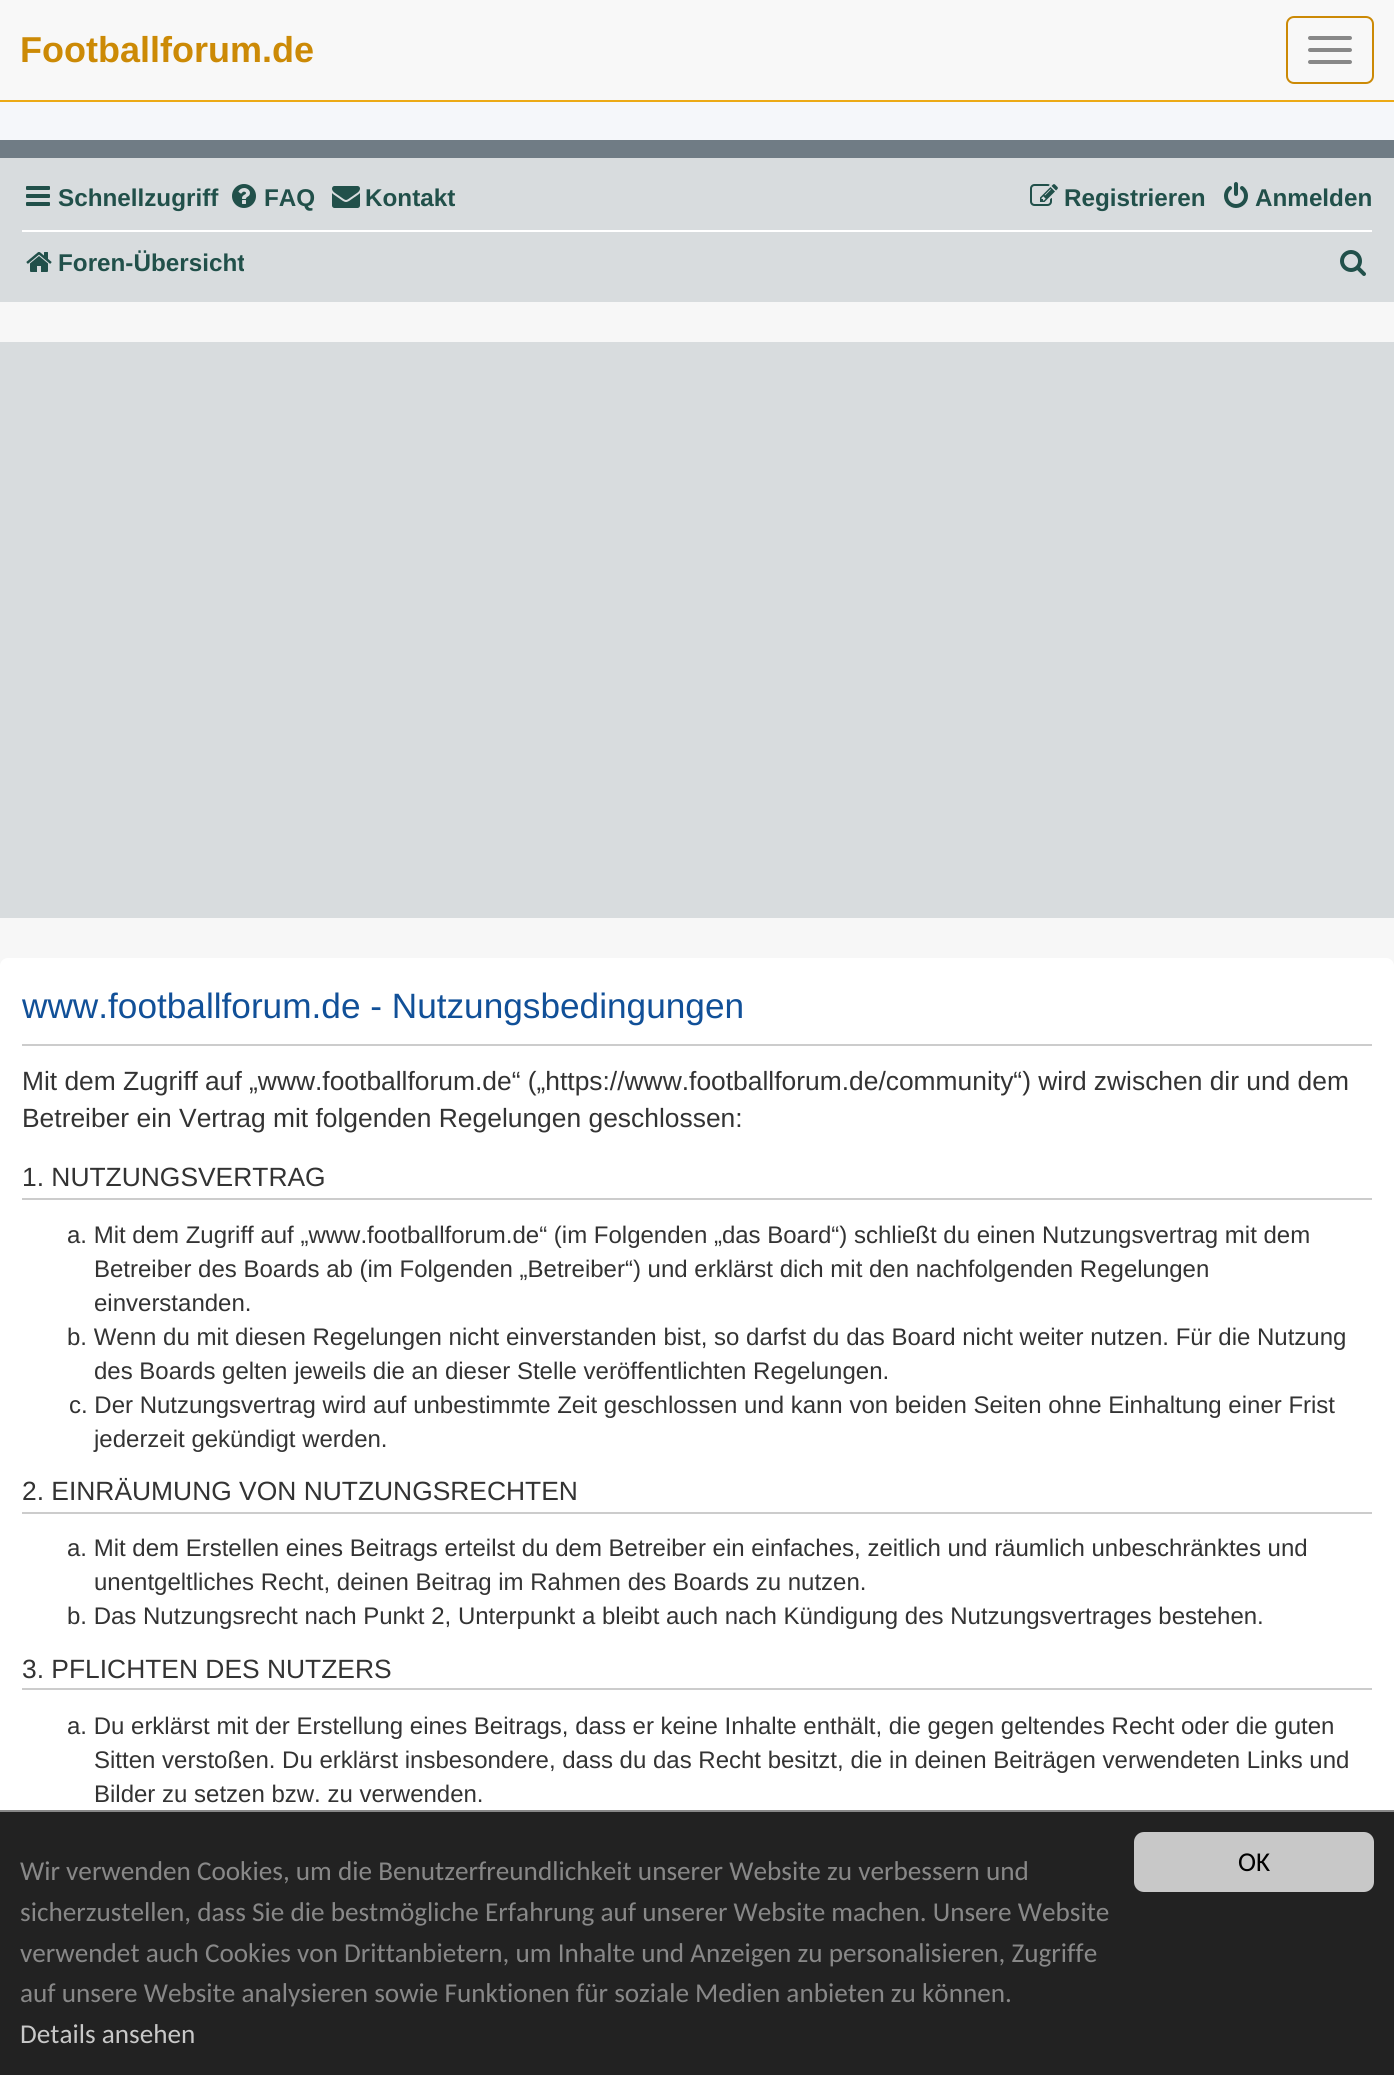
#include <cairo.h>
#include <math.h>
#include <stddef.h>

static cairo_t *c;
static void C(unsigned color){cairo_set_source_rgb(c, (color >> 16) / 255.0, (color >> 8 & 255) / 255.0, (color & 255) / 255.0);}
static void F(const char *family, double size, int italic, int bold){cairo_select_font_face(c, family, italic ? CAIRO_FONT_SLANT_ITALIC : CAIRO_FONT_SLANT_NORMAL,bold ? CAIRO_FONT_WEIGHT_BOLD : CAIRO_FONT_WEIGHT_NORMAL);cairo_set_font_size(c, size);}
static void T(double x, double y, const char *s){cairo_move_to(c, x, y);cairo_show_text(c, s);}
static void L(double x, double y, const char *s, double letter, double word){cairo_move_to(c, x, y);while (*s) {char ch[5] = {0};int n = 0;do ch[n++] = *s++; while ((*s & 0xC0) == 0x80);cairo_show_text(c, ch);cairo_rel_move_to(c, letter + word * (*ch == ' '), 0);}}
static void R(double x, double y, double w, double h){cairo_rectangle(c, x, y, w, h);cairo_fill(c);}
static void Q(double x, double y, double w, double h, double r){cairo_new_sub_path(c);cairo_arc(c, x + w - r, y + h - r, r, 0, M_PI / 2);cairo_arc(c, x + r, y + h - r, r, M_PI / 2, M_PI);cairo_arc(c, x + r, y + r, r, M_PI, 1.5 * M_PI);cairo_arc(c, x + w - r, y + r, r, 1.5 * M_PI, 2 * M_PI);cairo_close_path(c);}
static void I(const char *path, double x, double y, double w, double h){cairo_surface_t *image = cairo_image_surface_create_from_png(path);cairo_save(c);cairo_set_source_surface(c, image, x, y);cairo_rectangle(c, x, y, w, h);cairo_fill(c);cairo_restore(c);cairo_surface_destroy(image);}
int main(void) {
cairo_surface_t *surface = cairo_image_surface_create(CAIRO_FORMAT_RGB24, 1394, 2075);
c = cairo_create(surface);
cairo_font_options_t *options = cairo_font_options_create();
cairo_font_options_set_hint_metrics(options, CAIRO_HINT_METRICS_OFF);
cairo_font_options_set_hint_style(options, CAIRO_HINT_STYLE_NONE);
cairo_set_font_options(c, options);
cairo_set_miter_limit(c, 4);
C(0xf5f7fa);
cairo_paint(c);
C(0xf8f8f8);
R(0,0,1394,100);
C(0xecaa16);
R(0,100,1394,2);
F("Liberation Sans",36,0,1);
C(0xcc8a06);
T(20,62,"Footballforum.de");
Q(1287,17,86,66,7);
cairo_stroke(c);
C(0x888888);
Q(1308,36,44,4,2);
cairo_fill(c);
Q(1308,48,44,4,2);
cairo_fill(c);
Q(1308,60,44,4,2);
cairo_fill(c);
C(0xf7f7f7);
R(0,302,1394,664);
C(0x707c85);
R(0,140,1394,18);
C(0xd8dcde);
R(0,158,1394,144);
I("1.png",26,186,24,20);
F("Liberation Sans",24.25,0,1);
C(0x21504a);
T(58,206,"Schnellzugriff");
I("2.png",232,184,24,24);
T(264,206,"FAQ");
I("3.png",332,186,28,22);
T(365,206,"Kontakt");
I("4.png",1030,184,28,22);
T(1064,206,"Registrieren");
I("5.png",1224,182,24,26);
T(1255,206,"Anmelden");
C(0xffffff);
R(22,230,1350,2);
I("6.png",26,252,26,20);
cairo_save(c);
cairo_rectangle(c,22,238,222,52);
cairo_clip(c);
C(0x21504a);
T(58,271,"Foren-Übersicht");
cairo_restore(c);
I("7.png",1340,250,26,26);
C(0xd8dcde);
R(0,342,1394,576);
C(0xffffff);
Q(0,958,1394,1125,8);
cairo_fill(c);
C(0xcccccc);
R(22,1044,1350,2);
F("Liberation Sans",35.2,0,0);
C(0x115098);
T(22,1018,"www.footballforum.de - Nutzungsbedingungen");
F("Liberation Sans",26.4,0,0);
C(0x333333);
L(22,1090,"Mit dem Zugriff auf „www.footballforum.de“ („https://www.footballforum.de/community“) wird zwischen dir und dem",0,-.1);
T(22,1127,"Betreiber ein Vertrag mit folgenden Regelungen geschlossen:");
C(0xcccccc);
R(22,1198,1350,2);
C(0x333333);
T(22,1186,"1. NUTZUNGSVERTRAG");
F("Liberation Sans",24,0,0);
T(67,1243,"a. Mit dem Zugriff auf „www.footballforum.de“ (im Folgenden „das Board“) schließt du einen Nutzungsvertrag mit dem");
T(94,1277,"Betreiber des Boards ab (im Folgenden „Betreiber“) und erklärst dich mit den nachfolgenden Regelungen");
T(94,1311,"einverstanden.");
T(67,1345,"b. Wenn du mit diesen Regelungen nicht einverstanden bist, so darfst du das Board nicht weiter nutzen. Für die Nutzung");
T(94,1379,"des Boards gelten jeweils die an dieser Stelle veröffentlichten Regelungen.");
T(69,1413,"c. Der Nutzungsvertrag wird auf unbestimmte Zeit geschlossen und kann von beiden Seiten ohne Einhaltung einer Frist");
T(94,1447,"jederzeit gekündigt werden.");
C(0xcccccc);
R(22,1512,1350,2);
F("Liberation Sans",26.4,0,0);
C(0x333333);
T(22,1500,"2. EINRÄUMUNG VON NUTZUNGSRECHTEN");
F("Liberation Sans",24,0,0);
T(67,1556,"a. Mit dem Erstellen eines Beitrags erteilst du dem Betreiber ein einfaches, zeitlich und räumlich unbeschränktes und");
T(94,1590,"unentgeltliches Recht, deinen Beitrag im Rahmen des Boards zu nutzen.");
T(67,1624,"b. Das Nutzungsrecht nach Punkt 2, Unterpunkt a bleibt auch nach Kündigung des Nutzungsvertrages bestehen.");
C(0xcccccc);
R(22,1688,1350,2);
F("Liberation Sans",26.4,0,0);
C(0x333333);
T(22,1678,"3. PFLICHTEN DES NUTZERS");
F("Liberation Sans",24,0,0);
T(67,1734,"a. Du erklärst mit der Erstellung eines Beitrags, dass er keine Inhalte enthält, die gegen geltendes Recht oder die guten");
T(94,1768,"Sitten verstoßen. Du erklärst insbesondere, dass du das Recht besitzt, die in deinen Beiträgen verwendeten Links und");
T(94,1802,"Bilder zu setzen bzw. zu verwenden.");
C(0x222222);
R(0,1812,1394,263);
C(0x888888);
R(0,1810,1394,2);
F("Carlito",27.2,0,0);
T(20,1880,"Wir verwenden Cookies, um die Benutzerfreundlichkeit unserer Website zu verbessern und");
T(20,1921,"sicherzustellen, dass Sie die bestmögliche Erfahrung auf unserer Website machen. Unsere Website");
T(20,1962,"verwendet auch Cookies von Drittanbietern, um Inhalte und Anzeigen zu personalisieren, Zugriffe");
T(20,2002,"auf unsere Website analysieren sowie Funktionen für soziale Medien anbieten zu können.");
C(0xc8c8c8);
T(20,2043,"Details ansehen");
Q(1134,1832,240,60,10);
cairo_fill(c);
C(0x000000);
T(1238,1871,"OK");
cairo_surface_write_to_png(surface, "o.png");
cairo_font_options_destroy(options);
cairo_destroy(c);
cairo_surface_destroy(surface);
return 0;
}
